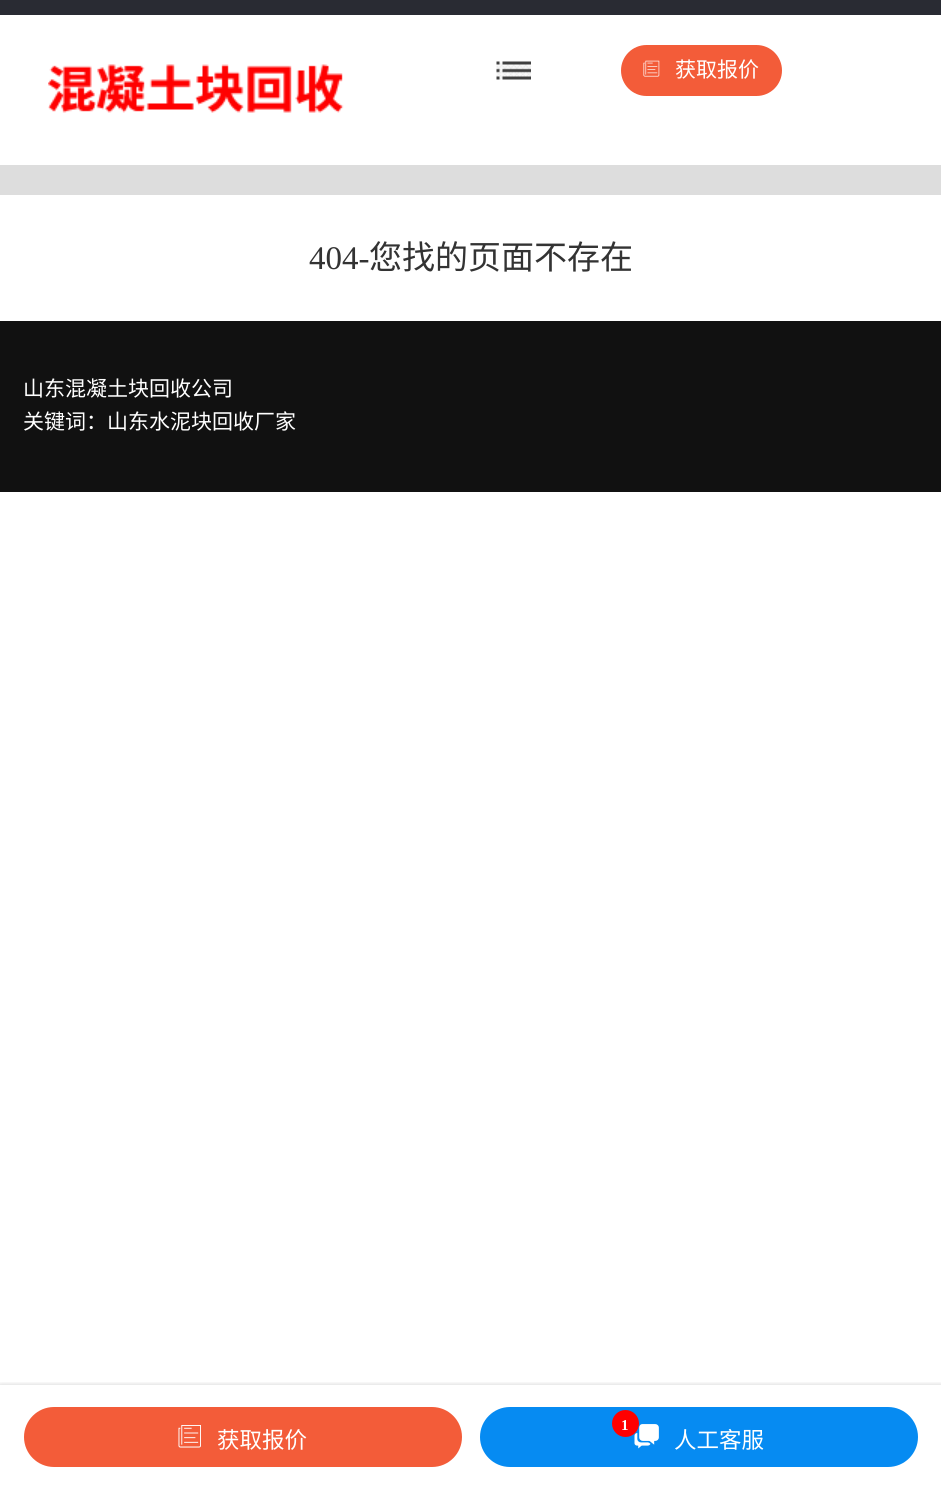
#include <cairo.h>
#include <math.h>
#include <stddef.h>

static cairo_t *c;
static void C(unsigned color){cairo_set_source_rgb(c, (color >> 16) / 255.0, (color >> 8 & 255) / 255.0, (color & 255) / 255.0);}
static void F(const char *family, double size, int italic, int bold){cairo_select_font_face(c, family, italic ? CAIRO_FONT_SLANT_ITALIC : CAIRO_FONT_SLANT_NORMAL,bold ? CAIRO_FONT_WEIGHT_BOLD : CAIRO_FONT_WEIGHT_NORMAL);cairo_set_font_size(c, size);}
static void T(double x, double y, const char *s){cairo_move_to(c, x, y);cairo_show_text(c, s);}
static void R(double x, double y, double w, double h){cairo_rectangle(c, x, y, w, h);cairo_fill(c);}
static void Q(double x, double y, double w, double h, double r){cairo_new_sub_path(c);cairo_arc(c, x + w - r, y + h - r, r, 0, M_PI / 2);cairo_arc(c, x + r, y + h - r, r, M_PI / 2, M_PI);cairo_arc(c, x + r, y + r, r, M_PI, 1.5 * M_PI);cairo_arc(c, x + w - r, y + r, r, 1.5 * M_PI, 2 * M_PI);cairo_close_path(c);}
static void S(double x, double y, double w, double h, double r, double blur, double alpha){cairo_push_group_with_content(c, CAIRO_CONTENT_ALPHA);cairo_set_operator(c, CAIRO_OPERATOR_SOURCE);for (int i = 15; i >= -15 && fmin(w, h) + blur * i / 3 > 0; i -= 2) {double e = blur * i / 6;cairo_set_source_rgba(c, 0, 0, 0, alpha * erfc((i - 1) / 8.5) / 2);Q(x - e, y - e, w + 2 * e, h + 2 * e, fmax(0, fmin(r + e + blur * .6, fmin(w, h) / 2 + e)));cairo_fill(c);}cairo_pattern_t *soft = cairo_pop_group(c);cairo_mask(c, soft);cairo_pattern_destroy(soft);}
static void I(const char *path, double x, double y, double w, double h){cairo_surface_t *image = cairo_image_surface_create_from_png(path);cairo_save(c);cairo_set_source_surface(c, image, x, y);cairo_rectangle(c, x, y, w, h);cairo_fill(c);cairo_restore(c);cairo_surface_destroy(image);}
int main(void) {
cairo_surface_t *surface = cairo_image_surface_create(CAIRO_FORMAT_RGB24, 941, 1489);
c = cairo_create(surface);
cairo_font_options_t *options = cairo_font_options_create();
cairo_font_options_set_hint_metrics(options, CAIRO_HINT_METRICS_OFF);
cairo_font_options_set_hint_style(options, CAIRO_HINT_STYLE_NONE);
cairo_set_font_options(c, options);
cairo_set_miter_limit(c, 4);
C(0xffffff);
cairo_paint(c);
C(0x292b33);
R(0,0,941,15);
C(0xdddddd);
R(0,165,941,30);
I("1.png",48,64,296,49);
I("2.png",496,61,35,19);
C(0xf35c39);
Q(621,45,161,51,25.5);
cairo_fill(c);
I("3.png",643,60,17,17);
F("Noto Sans CJK SC",21,0,0);
C(0xffffff);
T(675,77,"获取报价");
F("Liberation Serif",33,0,0);
C(0x333333);
T(309,269,"404-");
F("Noto Sans CJK SC",33,0,0);
T(369,269,"您找的页面不存在");
C(0x111111);
R(0,321,941,171);
F("Noto Sans CJK SC",21,0,0);
C(0xffffff);
T(23,396,"山东混凝土块回收公司");
T(23,429,"关键词：山东水泥块回收厂家");
cairo_save(c);
cairo_rectangle(c,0,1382,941,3);
cairo_clip(c);
C(0x000000);
S(0,1385,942,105,0,2.5,.19);
cairo_restore(c);
C(0xf35c39);
Q(24,1407,438,60,30);
cairo_fill(c);
I("4.png",178,1425,23,23);
F("Noto Sans CJK SC",22.5,0,0);
C(0xffffff);
T(217,1448,"获取报价");
C(0x068bf2);
Q(480,1407,438,60,30);
cairo_fill(c);
I("5.png",634,1424,25,25);
C(0xff0000);
cairo_arc(c,625.5,1423.5,13.5,0,2 * M_PI);
cairo_fill(c);
F("Liberation Serif",15,0,1);
C(0xffffff);
T(621,1430,"1");
F("Noto Sans CJK SC",22.5,0,0);
T(674,1448,"人工客服");
cairo_surface_write_to_png(surface, "o.png");
cairo_font_options_destroy(options);
cairo_destroy(c);
cairo_surface_destroy(surface);
return 0;
}
